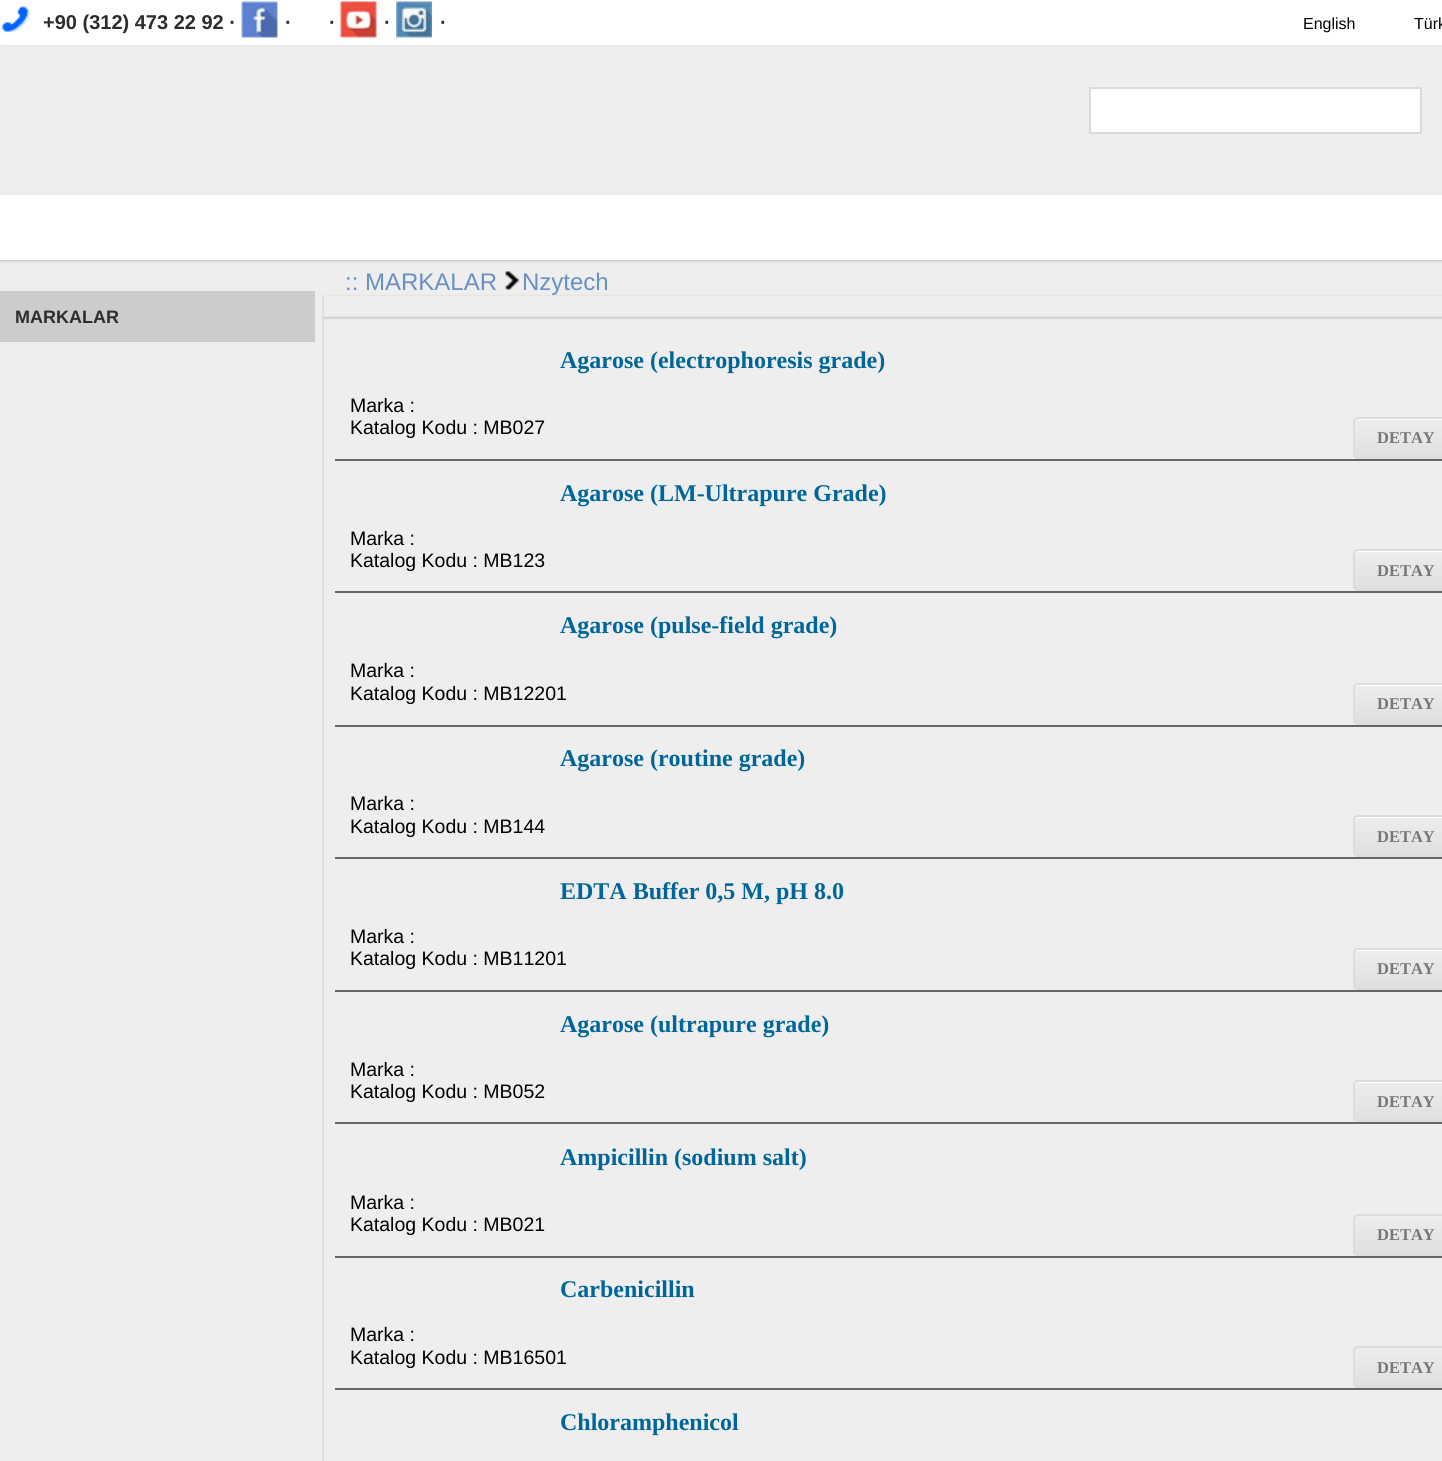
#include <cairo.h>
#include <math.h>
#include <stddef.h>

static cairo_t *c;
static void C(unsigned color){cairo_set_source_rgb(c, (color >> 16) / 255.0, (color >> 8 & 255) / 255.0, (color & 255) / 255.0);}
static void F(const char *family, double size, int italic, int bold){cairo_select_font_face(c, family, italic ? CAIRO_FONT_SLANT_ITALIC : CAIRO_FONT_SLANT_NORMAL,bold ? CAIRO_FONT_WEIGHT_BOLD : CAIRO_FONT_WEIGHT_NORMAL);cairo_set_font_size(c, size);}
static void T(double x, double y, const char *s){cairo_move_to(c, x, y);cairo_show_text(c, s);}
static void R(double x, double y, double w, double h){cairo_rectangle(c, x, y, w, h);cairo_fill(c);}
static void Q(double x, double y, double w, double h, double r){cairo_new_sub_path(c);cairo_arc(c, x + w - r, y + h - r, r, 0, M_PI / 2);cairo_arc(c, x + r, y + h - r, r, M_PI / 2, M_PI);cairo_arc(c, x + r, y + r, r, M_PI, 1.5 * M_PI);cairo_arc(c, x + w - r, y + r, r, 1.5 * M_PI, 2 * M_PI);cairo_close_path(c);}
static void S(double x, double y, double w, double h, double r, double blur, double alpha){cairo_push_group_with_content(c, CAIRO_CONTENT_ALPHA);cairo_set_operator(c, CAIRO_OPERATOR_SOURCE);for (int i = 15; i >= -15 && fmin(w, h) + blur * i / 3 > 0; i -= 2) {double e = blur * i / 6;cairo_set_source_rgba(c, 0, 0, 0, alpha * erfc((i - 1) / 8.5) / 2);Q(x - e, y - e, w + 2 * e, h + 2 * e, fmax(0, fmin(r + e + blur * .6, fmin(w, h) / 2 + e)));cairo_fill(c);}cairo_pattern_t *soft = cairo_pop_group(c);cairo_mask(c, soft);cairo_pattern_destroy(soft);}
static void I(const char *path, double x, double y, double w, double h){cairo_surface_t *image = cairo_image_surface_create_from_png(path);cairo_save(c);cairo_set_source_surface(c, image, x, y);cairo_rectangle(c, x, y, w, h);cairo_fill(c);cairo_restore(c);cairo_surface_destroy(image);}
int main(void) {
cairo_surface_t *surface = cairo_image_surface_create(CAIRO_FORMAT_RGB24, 1442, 1461);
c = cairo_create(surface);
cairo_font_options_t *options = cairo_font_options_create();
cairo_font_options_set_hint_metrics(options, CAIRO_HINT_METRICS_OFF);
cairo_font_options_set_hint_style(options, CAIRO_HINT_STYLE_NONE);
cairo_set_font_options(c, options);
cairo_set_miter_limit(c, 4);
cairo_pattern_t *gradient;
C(0xeeeeee);
cairo_paint(c);
C(0xd9d9d9);
S(0,0,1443,45,0,1.5,1);
C(0xffffff);
R(0,0,1442,45);
I("1.png",1,6,29,26);
F("Liberation Sans",20,0,1);
C(0x2d2d2d);
T(43,29,"+90 (312) 473 22 92 ·");
I("2.png",241,1,37,37);
T(285,29,"·");
T(329,29,"·");
I("3.png",340,1,37,37);
T(384,29,"·");
I("4.png",396,1,36,37);
T(440,29,"·");
F("Liberation Sans",16,0,0);
C(0x000000);
T(1303,29,"English");
T(1414,29,"Türk");
C(0xffffff);
cairo_rectangle(c,1090,88,331,45);
cairo_fill_preserve(c);
C(0xdadada);
cairo_stroke(c);
C(0xbdbdbd);
S(0,197,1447,64,0,1.5,1);
C(0xffffff);
R(0,195,1442,65);
F("Liberation Sans",24,0,0);
C(0x6791c2);
T(345,290,":: MARKALAR");
I("5.png",505,271,15,19);
T(522,290,"Nzytech");
C(0xcccccc);
R(0,291,315,51);
F("Liberation Sans",18,0,1);
C(0x2d2d2d);
T(15,323,"MARKALAR");
cairo_save(c);
cairo_set_fill_rule(c,CAIRO_FILL_RULE_EVEN_ODD);
cairo_new_path(c);
cairo_move_to(c,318,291);
cairo_line_to(c,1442,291);
cairo_line_to(c,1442,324);
cairo_line_to(c,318,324);
cairo_close_path(c);
cairo_move_to(c,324,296);
cairo_line_to(c,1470,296);
cairo_line_to(c,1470,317);
cairo_line_to(c,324,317);
cairo_close_path(c);
cairo_clip(c);
C(0xbdbdbd);
S(324,297,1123,21,0,1.5,1);
cairo_restore(c);
cairo_save(c);
cairo_set_fill_rule(c,CAIRO_FILL_RULE_EVEN_ODD);
cairo_new_path(c);
cairo_move_to(c,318,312);
cairo_line_to(c,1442,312);
cairo_line_to(c,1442,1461);
cairo_line_to(c,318,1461);
cairo_close_path(c);
cairo_move_to(c,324,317);
cairo_line_to(c,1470,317);
cairo_line_to(c,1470,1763);
cairo_line_to(c,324,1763);
cairo_close_path(c);
cairo_clip(c);
C(0xbdbdbd);
S(324,318,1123,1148,0,1.5,1);
cairo_restore(c);
C(0x666666);
R(335,459,1107,2);
F("Liberation Serif",24,0,1);
C(0x006699);
T(560,368,"Agarose (electrophoresis grade)");
F("Liberation Sans",19.5,0,0);
C(0x000000);
T(350,412,"Marka :");
T(350,434,"Katalog Kodu : MB027");
cairo_save(c);
Q(1353,417,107,42,5);
cairo_clip(c);
gradient = cairo_pattern_create_linear(1355,419,1355,458);
cairo_pattern_add_color_stop_rgba(gradient,.05,0.929,0.929,0.929,1);
cairo_pattern_add_color_stop_rgba(gradient,1,0.875,0.875,0.875,1);
cairo_set_source(c,gradient);
cairo_pattern_destroy(gradient);
R(1353,419,89,39);
cairo_restore(c);
C(0xffffff);
cairo_new_path(c);
cairo_move_to(c,1358,420);
cairo_line_to(c,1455,420);
cairo_curve_to(c,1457,420,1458,421,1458,423);
cairo_line_to(c,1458,422);
cairo_curve_to(c,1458,420,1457,419,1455,419);
cairo_line_to(c,1358,419);
cairo_curve_to(c,1357,419,1356,420,1355,421);
cairo_close_path(c);
cairo_fill(c);
Q(1354,418,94,40,4);
C(0xdcdcdc);
cairo_stroke(c);
F("Liberation Serif",16.5,0,1);
C(0x777777);
T(1377,443,"DETAY");
C(0x666666);
R(335,591,1107,2);
F("Liberation Serif",24,0,1);
C(0x006699);
T(560,501,"Agarose (LM-Ultrapure Grade)");
F("Liberation Sans",19.5,0,0);
C(0x000000);
T(350,545,"Marka :");
T(350,567,"Katalog Kodu : MB123");
cairo_save(c);
Q(1353,549,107,42,5);
cairo_clip(c);
gradient = cairo_pattern_create_linear(1355,551,1355,590);
cairo_pattern_add_color_stop_rgba(gradient,.05,0.929,0.929,0.929,1);
cairo_pattern_add_color_stop_rgba(gradient,1,0.875,0.875,0.875,1);
cairo_set_source(c,gradient);
cairo_pattern_destroy(gradient);
R(1353,551,89,39);
cairo_restore(c);
C(0xffffff);
cairo_new_path(c);
cairo_move_to(c,1358,552);
cairo_line_to(c,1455,552);
cairo_curve_to(c,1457,552,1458,553,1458,555);
cairo_line_to(c,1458,554);
cairo_curve_to(c,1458,552,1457,551,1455,551);
cairo_line_to(c,1358,551);
cairo_curve_to(c,1357,551,1356,552,1355,553);
cairo_close_path(c);
cairo_fill(c);
Q(1354,550,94,40,4);
C(0xdcdcdc);
cairo_stroke(c);
F("Liberation Serif",16.5,0,1);
C(0x777777);
T(1377,576,"DETAY");
C(0x666666);
R(335,725,1107,2);
F("Liberation Serif",24,0,1);
C(0x006699);
T(560,633,"Agarose (pulse-field grade)");
F("Liberation Sans",19.5,0,0);
C(0x000000);
T(350,677,"Marka :");
T(350,700,"Katalog Kodu : MB12201");
cairo_save(c);
Q(1353,683,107,42,5);
cairo_clip(c);
gradient = cairo_pattern_create_linear(1355,684,1355,723);
cairo_pattern_add_color_stop_rgba(gradient,.05,0.929,0.929,0.929,1);
cairo_pattern_add_color_stop_rgba(gradient,1,0.875,0.875,0.875,1);
cairo_set_source(c,gradient);
cairo_pattern_destroy(gradient);
R(1353,684,89,39);
cairo_restore(c);
C(0xffffff);
cairo_new_path(c);
cairo_move_to(c,1358,686);
cairo_line_to(c,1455,686);
cairo_curve_to(c,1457,686,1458,687,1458,688);
cairo_line_to(c,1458,687);
cairo_curve_to(c,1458,685,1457,684,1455,684);
cairo_line_to(c,1358,684);
cairo_curve_to(c,1356,684,1355,685,1355,687);
cairo_close_path(c);
cairo_fill(c);
Q(1354,684,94,40,4);
C(0xdcdcdc);
cairo_stroke(c);
F("Liberation Serif",16.5,0,1);
C(0x777777);
T(1377,709,"DETAY");
C(0x666666);
R(335,857,1107,2);
F("Liberation Serif",24,0,1);
C(0x006699);
T(560,766,"Agarose (routine grade)");
F("Liberation Sans",19.5,0,0);
C(0x000000);
T(350,810,"Marka :");
T(350,833,"Katalog Kodu : MB144");
cairo_save(c);
Q(1353,815,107,42,5);
cairo_clip(c);
gradient = cairo_pattern_create_linear(1355,816,1355,855);
cairo_pattern_add_color_stop_rgba(gradient,.05,0.929,0.929,0.929,1);
cairo_pattern_add_color_stop_rgba(gradient,1,0.875,0.875,0.875,1);
cairo_set_source(c,gradient);
cairo_pattern_destroy(gradient);
R(1353,816,89,39);
cairo_restore(c);
C(0xffffff);
cairo_new_path(c);
cairo_move_to(c,1358,818);
cairo_line_to(c,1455,818);
cairo_curve_to(c,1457,818,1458,819,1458,820);
cairo_line_to(c,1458,819);
cairo_curve_to(c,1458,817,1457,816,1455,816);
cairo_line_to(c,1358,816);
cairo_curve_to(c,1356,816,1355,817,1355,819);
cairo_close_path(c);
cairo_fill(c);
Q(1354,816,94,40,4);
C(0xdcdcdc);
cairo_stroke(c);
F("Liberation Serif",16.5,0,1);
C(0x777777);
T(1377,842,"DETAY");
C(0x666666);
R(335,990,1107,2);
F("Liberation Serif",24,0,1);
C(0x006699);
T(560,899,"EDTA Buffer 0,5 M, pH 8.0");
F("Liberation Sans",19.5,0,0);
C(0x000000);
T(350,943,"Marka :");
T(350,965,"Katalog Kodu : MB11201");
cairo_save(c);
Q(1353,948,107,42,5);
cairo_clip(c);
gradient = cairo_pattern_create_linear(1355,950,1355,989);
cairo_pattern_add_color_stop_rgba(gradient,.05,0.929,0.929,0.929,1);
cairo_pattern_add_color_stop_rgba(gradient,1,0.875,0.875,0.875,1);
cairo_set_source(c,gradient);
cairo_pattern_destroy(gradient);
R(1353,950,89,39);
cairo_restore(c);
C(0xffffff);
cairo_new_path(c);
cairo_move_to(c,1358,951);
cairo_line_to(c,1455,951);
cairo_curve_to(c,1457,951,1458,952,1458,954);
cairo_line_to(c,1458,953);
cairo_curve_to(c,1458,951,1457,950,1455,950);
cairo_line_to(c,1358,950);
cairo_curve_to(c,1357,950,1356,951,1355,952);
cairo_close_path(c);
cairo_fill(c);
Q(1354,949,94,40,4);
C(0xdcdcdc);
cairo_stroke(c);
F("Liberation Serif",16.5,0,1);
C(0x777777);
T(1377,974,"DETAY");
C(0x666666);
R(335,1122,1107,2);
F("Liberation Serif",24,0,1);
C(0x006699);
T(560,1032,"Agarose (ultrapure grade)");
F("Liberation Sans",19.5,0,0);
C(0x000000);
T(350,1076,"Marka :");
T(350,1098,"Katalog Kodu : MB052");
cairo_save(c);
Q(1353,1080,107,42,5);
cairo_clip(c);
gradient = cairo_pattern_create_linear(1355,1082,1355,1121);
cairo_pattern_add_color_stop_rgba(gradient,.05,0.929,0.929,0.929,1);
cairo_pattern_add_color_stop_rgba(gradient,1,0.875,0.875,0.875,1);
cairo_set_source(c,gradient);
cairo_pattern_destroy(gradient);
R(1353,1082,89,39);
cairo_restore(c);
C(0xffffff);
cairo_new_path(c);
cairo_move_to(c,1358,1083);
cairo_line_to(c,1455,1083);
cairo_curve_to(c,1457,1083,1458,1084,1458,1086);
cairo_line_to(c,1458,1085);
cairo_curve_to(c,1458,1083,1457,1082,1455,1082);
cairo_line_to(c,1358,1082);
cairo_curve_to(c,1357,1082,1356,1083,1355,1084);
cairo_close_path(c);
cairo_fill(c);
Q(1354,1081,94,40,4);
C(0xdcdcdc);
cairo_stroke(c);
F("Liberation Serif",16.5,0,1);
C(0x777777);
T(1377,1107,"DETAY");
C(0x666666);
R(335,1256,1107,2);
F("Liberation Serif",24,0,1);
C(0x006699);
T(560,1165,"Ampicillin (sodium salt)");
F("Liberation Sans",19.5,0,0);
C(0x000000);
T(350,1209,"Marka :");
T(350,1231,"Katalog Kodu : MB021");
cairo_save(c);
Q(1353,1214,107,42,5);
cairo_clip(c);
gradient = cairo_pattern_create_linear(1355,1215,1355,1254);
cairo_pattern_add_color_stop_rgba(gradient,.05,0.929,0.929,0.929,1);
cairo_pattern_add_color_stop_rgba(gradient,1,0.875,0.875,0.875,1);
cairo_set_source(c,gradient);
cairo_pattern_destroy(gradient);
R(1353,1215,89,39);
cairo_restore(c);
Q(1354,1215,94,40,4);
C(0xdcdcdc);
cairo_stroke(c);
F("Liberation Serif",16.5,0,1);
C(0x777777);
T(1377,1240,"DETAY");
C(0x666666);
R(335,1388,1107,2);
F("Liberation Serif",24,0,1);
C(0x006699);
T(560,1297,"Carbenicillin");
F("Liberation Sans",19.5,0,0);
C(0x000000);
T(350,1341,"Marka :");
T(350,1364,"Katalog Kodu : MB16501");
cairo_save(c);
Q(1353,1346,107,42,5);
cairo_clip(c);
gradient = cairo_pattern_create_linear(1355,1347,1355,1386);
cairo_pattern_add_color_stop_rgba(gradient,.05,0.929,0.929,0.929,1);
cairo_pattern_add_color_stop_rgba(gradient,1,0.875,0.875,0.875,1);
cairo_set_source(c,gradient);
cairo_pattern_destroy(gradient);
R(1353,1347,89,39);
cairo_restore(c);
Q(1354,1347,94,40,4);
C(0xdcdcdc);
cairo_stroke(c);
F("Liberation Serif",16.5,0,1);
C(0x777777);
T(1377,1373,"DETAY");
F("Liberation Serif",24,0,1);
C(0x006699);
T(560,1430,"Chloramphenicol");
cairo_surface_write_to_png(surface, "o.png");
cairo_font_options_destroy(options);
cairo_destroy(c);
cairo_surface_destroy(surface);
return 0;
}
